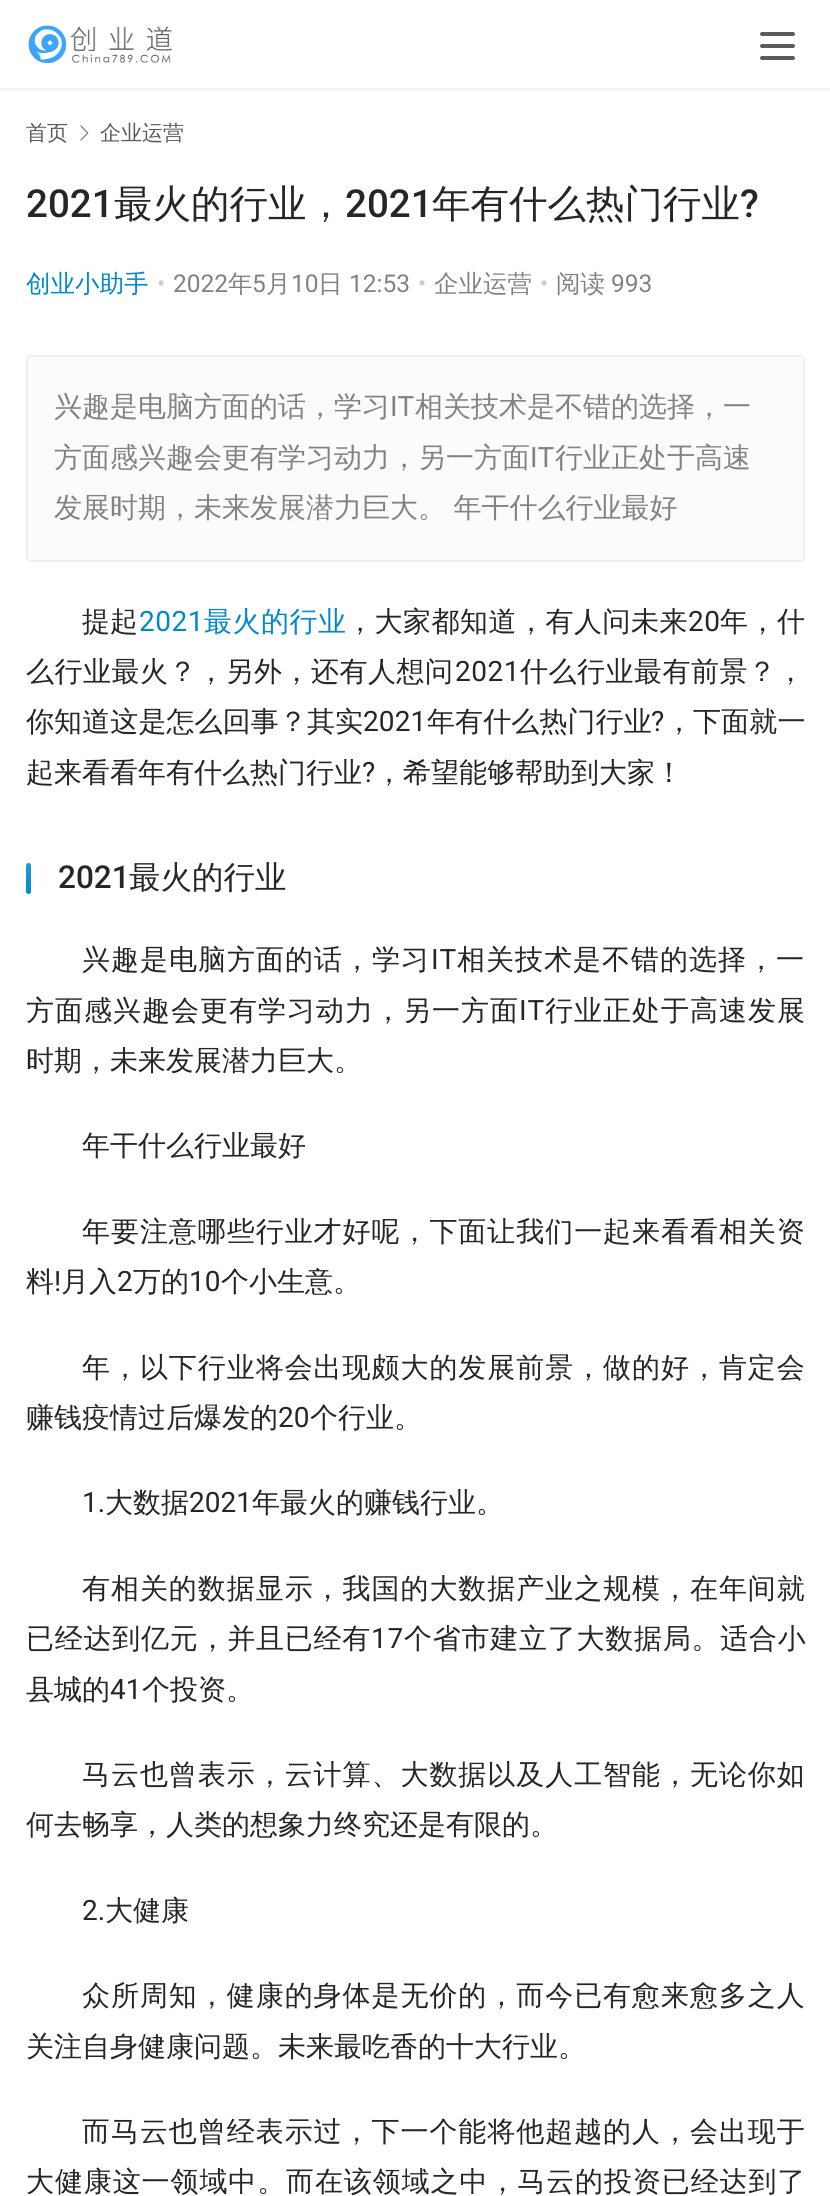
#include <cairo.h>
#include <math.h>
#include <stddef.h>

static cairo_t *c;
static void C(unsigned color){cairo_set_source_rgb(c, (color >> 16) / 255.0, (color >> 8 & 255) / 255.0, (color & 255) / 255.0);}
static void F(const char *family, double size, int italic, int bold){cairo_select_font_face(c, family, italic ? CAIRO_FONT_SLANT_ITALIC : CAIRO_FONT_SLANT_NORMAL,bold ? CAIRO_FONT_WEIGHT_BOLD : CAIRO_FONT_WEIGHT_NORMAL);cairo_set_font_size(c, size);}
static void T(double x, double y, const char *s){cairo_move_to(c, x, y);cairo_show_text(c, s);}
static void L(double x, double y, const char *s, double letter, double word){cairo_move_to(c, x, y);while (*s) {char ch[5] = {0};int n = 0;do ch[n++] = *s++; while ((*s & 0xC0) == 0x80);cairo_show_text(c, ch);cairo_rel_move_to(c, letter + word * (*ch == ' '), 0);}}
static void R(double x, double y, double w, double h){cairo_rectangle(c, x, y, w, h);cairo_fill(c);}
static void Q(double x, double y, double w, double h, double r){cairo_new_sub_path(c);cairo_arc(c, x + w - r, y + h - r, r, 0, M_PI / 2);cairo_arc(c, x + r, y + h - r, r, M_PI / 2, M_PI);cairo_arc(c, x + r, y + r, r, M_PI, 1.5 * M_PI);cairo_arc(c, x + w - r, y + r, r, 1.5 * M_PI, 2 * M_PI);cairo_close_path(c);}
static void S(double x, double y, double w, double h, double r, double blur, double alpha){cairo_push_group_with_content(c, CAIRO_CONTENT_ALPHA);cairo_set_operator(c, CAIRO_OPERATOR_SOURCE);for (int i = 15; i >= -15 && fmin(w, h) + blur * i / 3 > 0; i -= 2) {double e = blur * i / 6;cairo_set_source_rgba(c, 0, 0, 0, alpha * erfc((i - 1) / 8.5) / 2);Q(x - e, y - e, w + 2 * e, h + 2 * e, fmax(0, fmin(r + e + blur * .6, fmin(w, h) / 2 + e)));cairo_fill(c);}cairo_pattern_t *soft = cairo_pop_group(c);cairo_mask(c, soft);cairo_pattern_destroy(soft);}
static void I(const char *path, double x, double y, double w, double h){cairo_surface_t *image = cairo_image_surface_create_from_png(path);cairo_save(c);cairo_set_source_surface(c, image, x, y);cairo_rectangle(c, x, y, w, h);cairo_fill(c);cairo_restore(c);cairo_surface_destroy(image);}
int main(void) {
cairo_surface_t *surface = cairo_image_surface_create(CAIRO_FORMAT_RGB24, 830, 2196);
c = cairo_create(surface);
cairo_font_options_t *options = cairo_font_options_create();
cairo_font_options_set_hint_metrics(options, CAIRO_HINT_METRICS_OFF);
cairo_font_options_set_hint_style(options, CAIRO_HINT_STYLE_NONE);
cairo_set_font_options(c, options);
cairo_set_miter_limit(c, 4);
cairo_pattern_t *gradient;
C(0xffffff);
cairo_paint(c);
C(0x000000);
S(-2,-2,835,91,0,2.5,.1);
C(0xffffff);
R(0,0,830,88);
I("1.png",28,25,144,38);
C(0x5a5a5a);
Q(760,32,35,4,2);
cairo_fill(c);
Q(760,44,35,4,2);
cairo_fill(c);
Q(760,56,35,4,2);
cairo_fill(c);
F("WenQuanYi Zen Hei Medium",21,0,0);
T(26,140,"首页");
I("2.png",80,125,9,16);
T(100,140,"企业运营");
F("Roboto Medium",38.5,0,0);
C(0x262626);
T(26,217,"2021");
F("WenQuanYi Zen Hei Medium",38.5,0,0);
T(114,217,"最火的行业，");
F("Roboto Medium",38.5,0,0);
T(345,217,"2021");
F("WenQuanYi Zen Hei Medium",38.5,0,0);
T(432,217,"年有什么热门行业");
F("Roboto Medium",38.5,0,0);
T(740,217,"?");
F("WenQuanYi Zen Hei Medium",24.5,0,0);
C(0x0088cc);
T(26,292,"创业小助手");
F("Roboto",24.5,0,0);
C(0xcccccc);
T(157,292,"•");
C(0x828282);
T(173,292,"2022");
F("WenQuanYi Zen Hei Medium",24.5,0,0);
T(228,292,"年");
F("Roboto",24.5,0,0);
T(252,292,"5");
F("WenQuanYi Zen Hei Medium",24.5,0,0);
T(266,292,"月");
F("Roboto",24.5,0,0);
T(291,292,"10");
F("WenQuanYi Zen Hei Medium",24.5,0,0);
T(318,292,"日");
F("Roboto",24.5,0,0);
T(349,292,"12:53");
C(0xcccccc);
T(418,292,"•");
F("WenQuanYi Zen Hei Medium",24.5,0,0);
C(0x828282);
T(434,292,"企业运营");
F("Roboto",24.5,0,0);
C(0xcccccc);
T(540,292,"•");
F("WenQuanYi Zen Hei Medium",24.5,0,0);
C(0x828282);
T(556,292,"阅读");
F("Roboto",24.5,0,0);
T(611,292,"993");
C(0xfbfbfb);
Q(27,356,777,205,4);
cairo_fill_preserve(c);
C(0xefefef);
cairo_stroke(c);
F("WenQuanYi Zen Hei Medium",28,0,0);
C(0x828282);
T(54,416,"兴趣是电脑方面的话，学习");
F("Roboto",28,0,0);
T(390,416,"IT");
F("WenQuanYi Zen Hei Medium",28,0,0);
T(415,416,"相关技术是不错的选择，一");
T(54,467,"方面感兴趣会更有学习动力，另一方面");
F("Roboto",28,0,0);
T(530,467,"IT");
F("WenQuanYi Zen Hei Medium",28,0,0);
T(555,467,"行业正处于高速");
L(54,517,"发展时期，未来发展潜力巨大。 年干什么行业最好",0,-1);
C(0x262626);
T(82,631,"提起");
F("Roboto",28,0,0);
C(0x0088cc);
L(139,631,"2021",.5,0);
F("WenQuanYi Zen Hei Medium",28,0,0);
L(204,631,"最火的行业",.5,0);
C(0x262626);
L(346,631,"，大家都知道，有人问未来",.5,0);
F("Roboto",28,0,0);
L(688,631,"20",.5,0);
F("WenQuanYi Zen Hei Medium",28,0,0);
L(720,631,"年，什",.5,0);
L(26,681,"么行业最火？，另外，还有人想问",.5,0);
F("Roboto",28,0,0);
L(455,681,"2021",.5,0);
F("WenQuanYi Zen Hei Medium",28,0,0);
L(520,681,"什么行业最有前景？，",.5,0);
L(26,731,"你知道这是怎么回事？其实",.1,0);
F("Roboto",28,0,0);
L(363,731,"2021",.1,0);
F("WenQuanYi Zen Hei Medium",28,0,0);
L(427,731,"年有什么热门行业",.1,0);
F("Roboto",28,0,0);
L(651,731,"?",.1,0);
F("WenQuanYi Zen Hei Medium",28,0,0);
L(665,731,"，下面就一",.1,0);
T(26,782,"起来看看年有什么热门行业");
F("Roboto",28,0,0);
T(362,782,"?");
F("WenQuanYi Zen Hei Medium",28,0,0);
T(375,782,"，希望能够帮助到大家！");
C(0x0088cc);
Q(26,863,5,31,2.5);
cairo_fill(c);
gradient = cairo_pattern_create_linear(29,863,29,894);
cairo_pattern_add_color_stop_rgba(gradient,0,1,1,1,.15);
cairo_pattern_add_color_stop_rgba(gradient,1,1,1,1,0);
cairo_set_source(c,gradient);
cairo_pattern_destroy(gradient);
Q(26,863,5,31,2.5);
cairo_fill(c);
F("Roboto Medium",31.5,0,0);
C(0x262626);
T(58,888,"2021");
F("WenQuanYi Zen Hei Medium",31.5,0,0);
T(129,888,"最火的行业");
F("WenQuanYi Zen Hei Medium",28,0,0);
L(82,969,"兴趣是电脑方面的话，学习",1,0);
F("Roboto",28,0,0);
L(431,969,"IT",1,0);
F("WenQuanYi Zen Hei Medium",28,0,0);
L(457,969,"相关技术是不错的选择，一",1,0);
L(26,1020,"方面感兴趣会更有学习动力，另一方面",1,0);
F("Roboto",28,0,0);
L(519,1020,"IT",1,0);
F("WenQuanYi Zen Hei Medium",28,0,0);
L(545,1020,"行业正处于高速发展",1,0);
T(26,1070,"时期，未来发展潜力巨大。");
T(82,1155,"年干什么行业最好");
L(82,1241,"年要注意哪些行业才好呢，下面让我们一起来看看相关资",.95,0);
T(26,1291,"料");
F("Roboto",28,0,0);
T(54,1291,"!");
F("WenQuanYi Zen Hei Medium",28,0,0);
T(61,1291,"月入");
F("Roboto",28,0,0);
T(117,1291,"2");
F("WenQuanYi Zen Hei Medium",28,0,0);
T(133,1291,"万的");
F("Roboto",28,0,0);
T(189,1291,"10");
F("WenQuanYi Zen Hei Medium",28,0,0);
T(221,1291,"个小生意。");
L(82,1377,"年，以下行业将会出现颇大的发展前景，做的好，肯定会",.95,0);
T(26,1427,"赚钱疫情过后爆发的");
F("Roboto",28,0,0);
T(278,1427,"20");
F("WenQuanYi Zen Hei Medium",28,0,0);
T(310,1427,"个行业。");
F("Roboto",28,0,0);
T(82,1512,"1.");
F("WenQuanYi Zen Hei Medium",28,0,0);
T(105,1512,"大数据");
F("Roboto",28,0,0);
T(189,1512,"2021");
F("WenQuanYi Zen Hei Medium",28,0,0);
T(252,1512,"年最火的赚钱行业。");
L(82,1598,"有相关的数据显示，我国的大数据产业之规模，在年间就",.95,0);
L(26,1648,"已经达到亿元，并且已经有",.75,0);
F("Roboto",28,0,0);
L(371,1648,"17",.75,0);
F("WenQuanYi Zen Hei Medium",28,0,0);
L(404,1648,"个省市建立了大数据局。适合小",.75,0);
T(26,1699,"县城的");
F("Roboto",28,0,0);
T(110,1699,"41");
F("WenQuanYi Zen Hei Medium",28,0,0);
T(142,1699,"个投资。");
L(82,1784,"马云也曾表示，云计算、大数据以及人工智能，无论你如",.95,0);
T(26,1834,"何去畅享，人类的想象力终究还是有限的。");
F("Roboto",28,0,0);
T(82,1920,"2.");
F("WenQuanYi Zen Hei Medium",28,0,0);
T(105,1920,"大健康");
L(82,2005,"众所周知，健康的身体是无价的，而今已有愈来愈多之人",.95,0);
T(26,2056,"关注自身健康问题。未来最吃香的十大行业。");
L(82,2141,"而马云也曾经表示过，下一个能将他超越的人，会出现于",.95,0);
L(26,2191,"大健康这一领域中。而在该领域之中，马云的投资已经达到了",.9,0);
cairo_surface_write_to_png(surface, "o.png");
cairo_font_options_destroy(options);
cairo_destroy(c);
cairo_surface_destroy(surface);
return 0;
}
